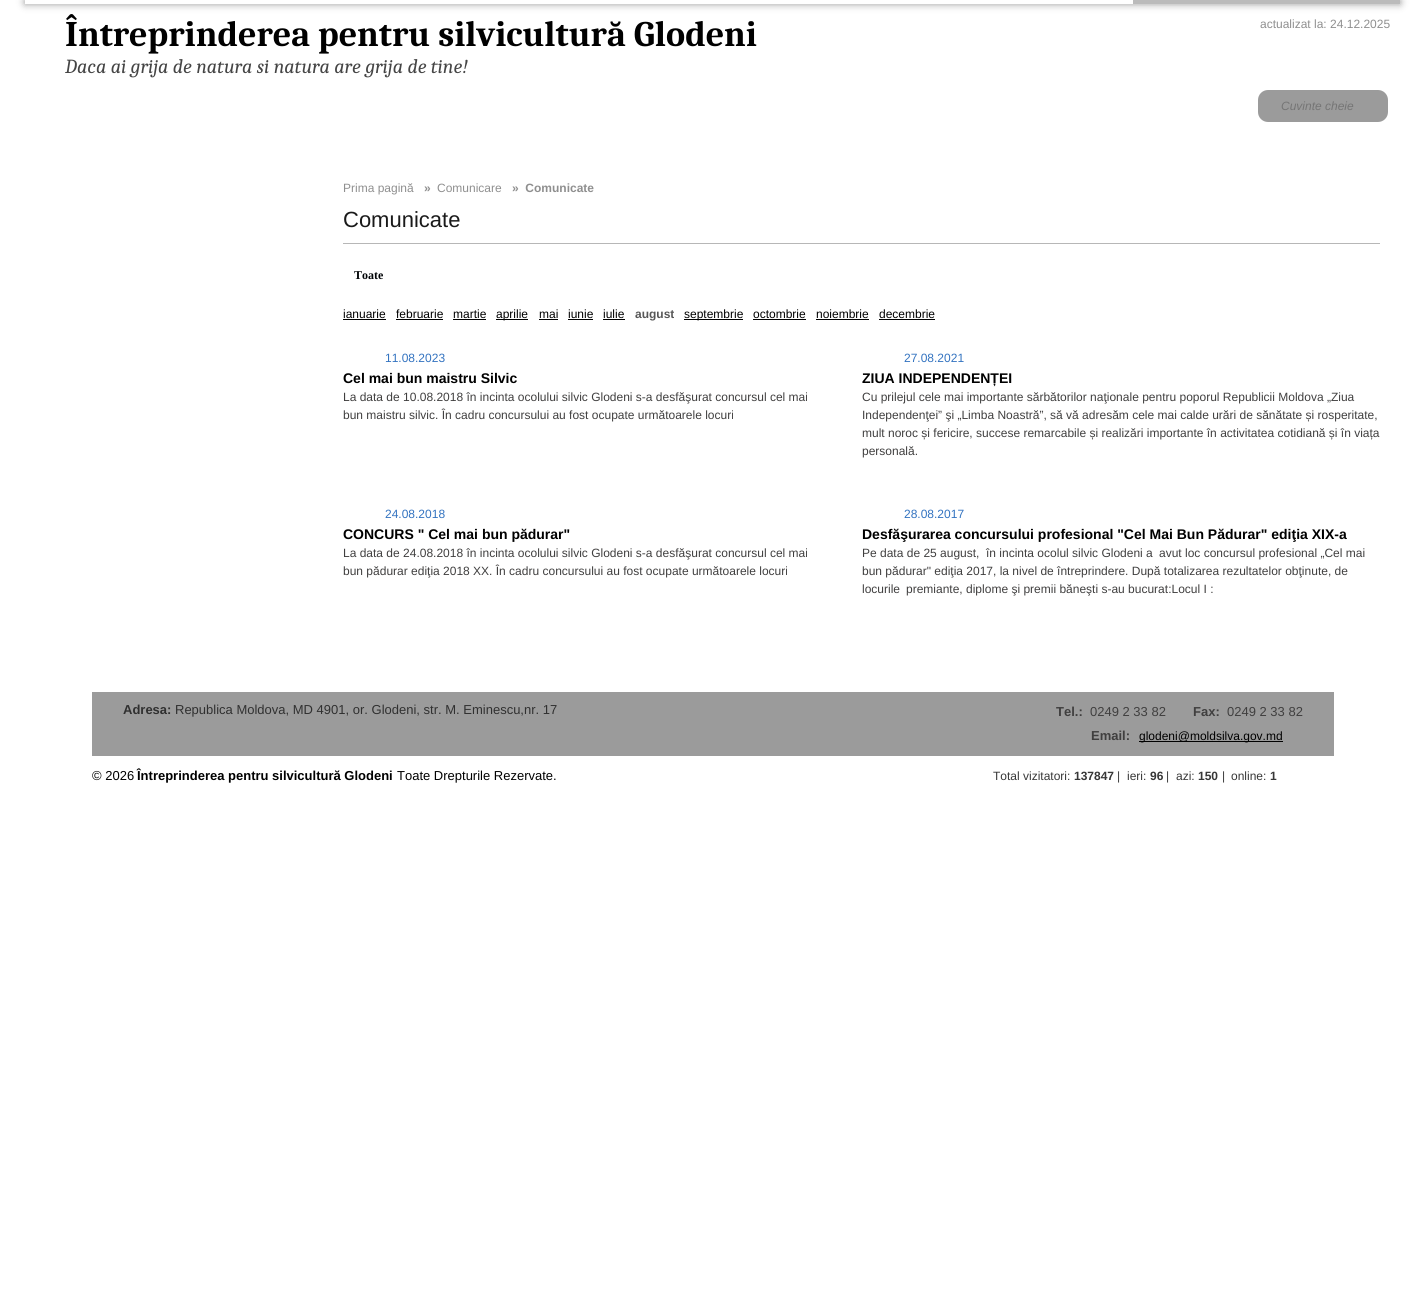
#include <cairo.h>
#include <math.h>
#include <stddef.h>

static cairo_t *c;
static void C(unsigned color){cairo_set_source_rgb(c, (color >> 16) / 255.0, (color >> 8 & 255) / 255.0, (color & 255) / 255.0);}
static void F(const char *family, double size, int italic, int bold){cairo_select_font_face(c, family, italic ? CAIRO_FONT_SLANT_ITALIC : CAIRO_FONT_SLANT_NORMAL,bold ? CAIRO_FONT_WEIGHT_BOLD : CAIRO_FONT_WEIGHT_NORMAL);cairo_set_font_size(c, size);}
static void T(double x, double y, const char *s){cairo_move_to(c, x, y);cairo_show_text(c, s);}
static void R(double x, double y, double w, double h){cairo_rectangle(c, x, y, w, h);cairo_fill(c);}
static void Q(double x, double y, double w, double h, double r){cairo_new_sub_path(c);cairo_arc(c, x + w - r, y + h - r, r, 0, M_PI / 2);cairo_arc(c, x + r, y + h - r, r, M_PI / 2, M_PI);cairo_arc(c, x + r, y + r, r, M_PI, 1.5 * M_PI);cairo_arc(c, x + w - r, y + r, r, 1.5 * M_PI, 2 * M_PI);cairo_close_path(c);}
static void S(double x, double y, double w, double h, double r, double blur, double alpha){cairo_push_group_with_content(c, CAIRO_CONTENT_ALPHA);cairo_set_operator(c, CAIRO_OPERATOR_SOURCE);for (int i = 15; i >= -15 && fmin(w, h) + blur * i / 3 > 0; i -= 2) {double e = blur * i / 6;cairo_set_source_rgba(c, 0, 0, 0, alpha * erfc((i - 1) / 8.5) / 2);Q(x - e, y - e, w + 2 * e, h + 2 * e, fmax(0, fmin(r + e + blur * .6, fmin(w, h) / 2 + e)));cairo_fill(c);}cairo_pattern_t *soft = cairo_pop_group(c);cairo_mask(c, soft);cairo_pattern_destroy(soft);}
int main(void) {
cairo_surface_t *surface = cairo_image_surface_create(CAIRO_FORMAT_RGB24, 1425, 1305);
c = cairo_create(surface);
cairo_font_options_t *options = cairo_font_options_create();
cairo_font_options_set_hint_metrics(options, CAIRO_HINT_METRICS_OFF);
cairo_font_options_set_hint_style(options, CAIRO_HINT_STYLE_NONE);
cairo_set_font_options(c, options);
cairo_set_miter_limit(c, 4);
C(0xffffff);
cairo_paint(c);
cairo_save(c);
cairo_set_fill_rule(c,CAIRO_FILL_RULE_EVEN_ODD);
cairo_new_path(c);
cairo_move_to(c,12,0);
cairo_line_to(c,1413,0);
cairo_line_to(c,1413,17);
cairo_line_to(c,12,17);
cairo_close_path(c);
cairo_move_to(c,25,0);
cairo_line_to(c,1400,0);
cairo_line_to(c,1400,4);
cairo_line_to(c,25,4);
cairo_close_path(c);
cairo_clip(c);
C(0x999999);
S(25,0,1375,4,0,4,1);
cairo_restore(c);
C(0xbbbbbb);
R(1133,0,267,4);
F("Caladea",36,0,1);
C(0x000000);
T(65,46,"Întreprinderea pentru silvicultură Glodeni");
F("Caladea",20,1,0);
C(0x454545);
T(65,73,"Daca ai grija de natura si natura are grija de tine!");
F("Liberation Sans",12,0,0);
C(0x8f8f8f);
T(1260,28,"actualizat la: 24.12.2025");
C(0x9b9b9b);
Q(1258,90,130,32,10);
cairo_fill(c);
F("Liberation Sans",12,1,0);
C(0x757575);
T(1281,110,"Cuvinte cheie");
F("Liberation Sans",12,0,0);
C(0x8f8f8f);
T(343,192,"Prima pagină");
F("Liberation Sans",12,0,1);
T(424,192,"»");
F("Liberation Sans",12,0,0);
T(437,192,"Comunicare");
F("Liberation Sans",12,0,1);
T(512,192,"»  Comunicate");
C(0xb7b7b7);
R(343,243,1037,1);
F("Liberation Sans",22,0,0);
C(0x1a1a1a);
T(343,227,"Comunicate");
F("Liberation Serif",12,0,1);
C(0x010407);
T(354,279,"Toate");
F("Liberation Sans",12,0,0);
C(0x000000);
T(343,318,"ianuarie");
R(343,319,43,1);
T(396,318,"februarie");
R(396,319,47,1);
T(453,318,"martie");
R(453,319,33,1);
R(496,319,32,1);
T(496,318,"aprilie");
T(539,318,"mai");
R(539,319,19,1);
T(568,318,"iunie");
R(568,319,25,1);
T(603,318,"iulie");
R(603,319,22,1);
F("Liberation Sans",12,0,1);
C(0x575757);
T(635,318,"august");
C(0x000000);
R(684,319,59,1);
F("Liberation Sans",12,0,0);
T(684,318,"septembrie");
T(753,318,"octombrie");
R(753,319,53,1);
T(816,318,"noiembrie");
R(816,319,53,1);
T(879,318,"decembrie");
R(879,319,56,1);
C(0x3373c0);
T(385,362,"11.08.2023");
F("Liberation Sans",14,0,1);
C(0x000000);
T(343,383,"Cel mai bun maistru Silvic");
F("Liberation Sans",12,0,0);
C(0x403f3f);
T(343,401,"La data de 10.08.2018 în incinta ocolului silvic Glodeni s-a desfăşurat concursul cel mai");
T(343,419,"bun maistru silvic. În cadru concursului au fost ocupate următoarele locuri");
C(0x3373c0);
T(904,362,"27.08.2021");
F("Liberation Sans",14,0,1);
C(0x000000);
T(862,383,"ZIUA INDEPENDENȚEI");
F("Liberation Sans",12,0,0);
C(0x403f3f);
T(862,401,"Cu prilejul cele mai importante sărbătorilor naţionale pentru poporul Republicii Moldova „Ziua");
T(862,419,"Independenţei” şi „Limba Noastră”, să vă adresăm cele mai calde urări de sănătate și rosperitate,");
T(862,437,"mult noroc și fericire, succese remarcabile și realizări importante în activitatea cotidiană și în viața");
T(862,455,"personală.");
C(0x3373c0);
T(385,518,"24.08.2018");
F("Liberation Sans",14,0,1);
C(0x000000);
T(343,539,"CONCURS \" Cel mai bun pădurar\"");
F("Liberation Sans",12,0,0);
C(0x403f3f);
T(343,557,"La data de 24.08.2018 în incinta ocolului silvic Glodeni s-a desfăşurat concursul cel mai");
T(343,575,"bun pădurar ediţia 2018 XX. În cadru concursului au fost ocupate următoarele locuri");
C(0x3373c0);
T(904,518,"28.08.2017");
F("Liberation Sans",14,0,1);
C(0x000000);
T(862,539,"Desfăşurarea concursului profesional \"Cel Mai Bun Pădurar\" ediţia XIX-a");
F("Liberation Sans",12,0,0);
C(0x403f3f);
T(862,557,"Pe data de 25 august,");
T(986,557,"în incinta ocolul silvic Glodeni a");
T(1159,557,"avut loc concursul profesional „Cel mai");
T(862,575,"bun pădurar\" ediţia 2017, la nivel de întreprindere. După totalizarea rezultatelor obţinute, de");
T(862,593,"locurile");
T(906,593,"premiante, diplome şi premii băneşti s-au bucurat:Locul I :");
C(0x9b9b9b);
R(92,692,1242,64);
F("Liberation Sans",13,0,1);
C(0x303030);
T(123,714,"Adresa:");
F("Liberation Sans",13,0,0);
T(175,714,"Republica Moldova, MD 4901, or. Glodeni, str. M. Eminescu,nr. 17");
F("Liberation Sans",13,0,1);
C(0x403f3f);
T(1056,716,"Tel.:");
F("Liberation Sans",13,0,0);
T(1090,716,"0249 2 33 82");
F("Liberation Sans",13,0,1);
T(1193,716,"Fax:");
F("Liberation Sans",13,0,0);
T(1227,716,"0249 2 33 82");
F("Liberation Sans",13,0,1);
T(1091,740,"Email:");
C(0x000000);
R(1139,741,144,1);
F("Liberation Sans",12,0,0);
T(1139,740,"glodeni@moldsilva.gov.md");
F("Liberation Sans",13,0,0);
T(92,780,"© 2026");
F("Liberation Sans",13,0,1);
T(137,780,"Întreprinderea pentru silvicultură Glodeni");
F("Liberation Sans",13,0,0);
T(397,780,"Toate Drepturile Rezervate.");
F("Liberation Sans",12,0,0);
C(0x373737);
T(993,780,"Total vizitatori:");
F("Liberation Sans",12,0,1);
T(1074,780,"137847");
F("Liberation Sans",12,0,0);
T(1117,780,"|");
T(1127,780,"ieri:");
F("Liberation Sans",12,0,1);
T(1150,780,"96");
F("Liberation Sans",12,0,0);
T(1166,780,"|");
T(1176,780,"azi:");
F("Liberation Sans",12,0,1);
T(1198,780,"150");
F("Liberation Sans",12,0,0);
T(1222,780,"|");
T(1231,780,"online:");
F("Liberation Sans",12,0,1);
T(1270,780,"1");
cairo_surface_write_to_png(surface, "o.png");
cairo_font_options_destroy(options);
cairo_destroy(c);
cairo_surface_destroy(surface);
return 0;
}
